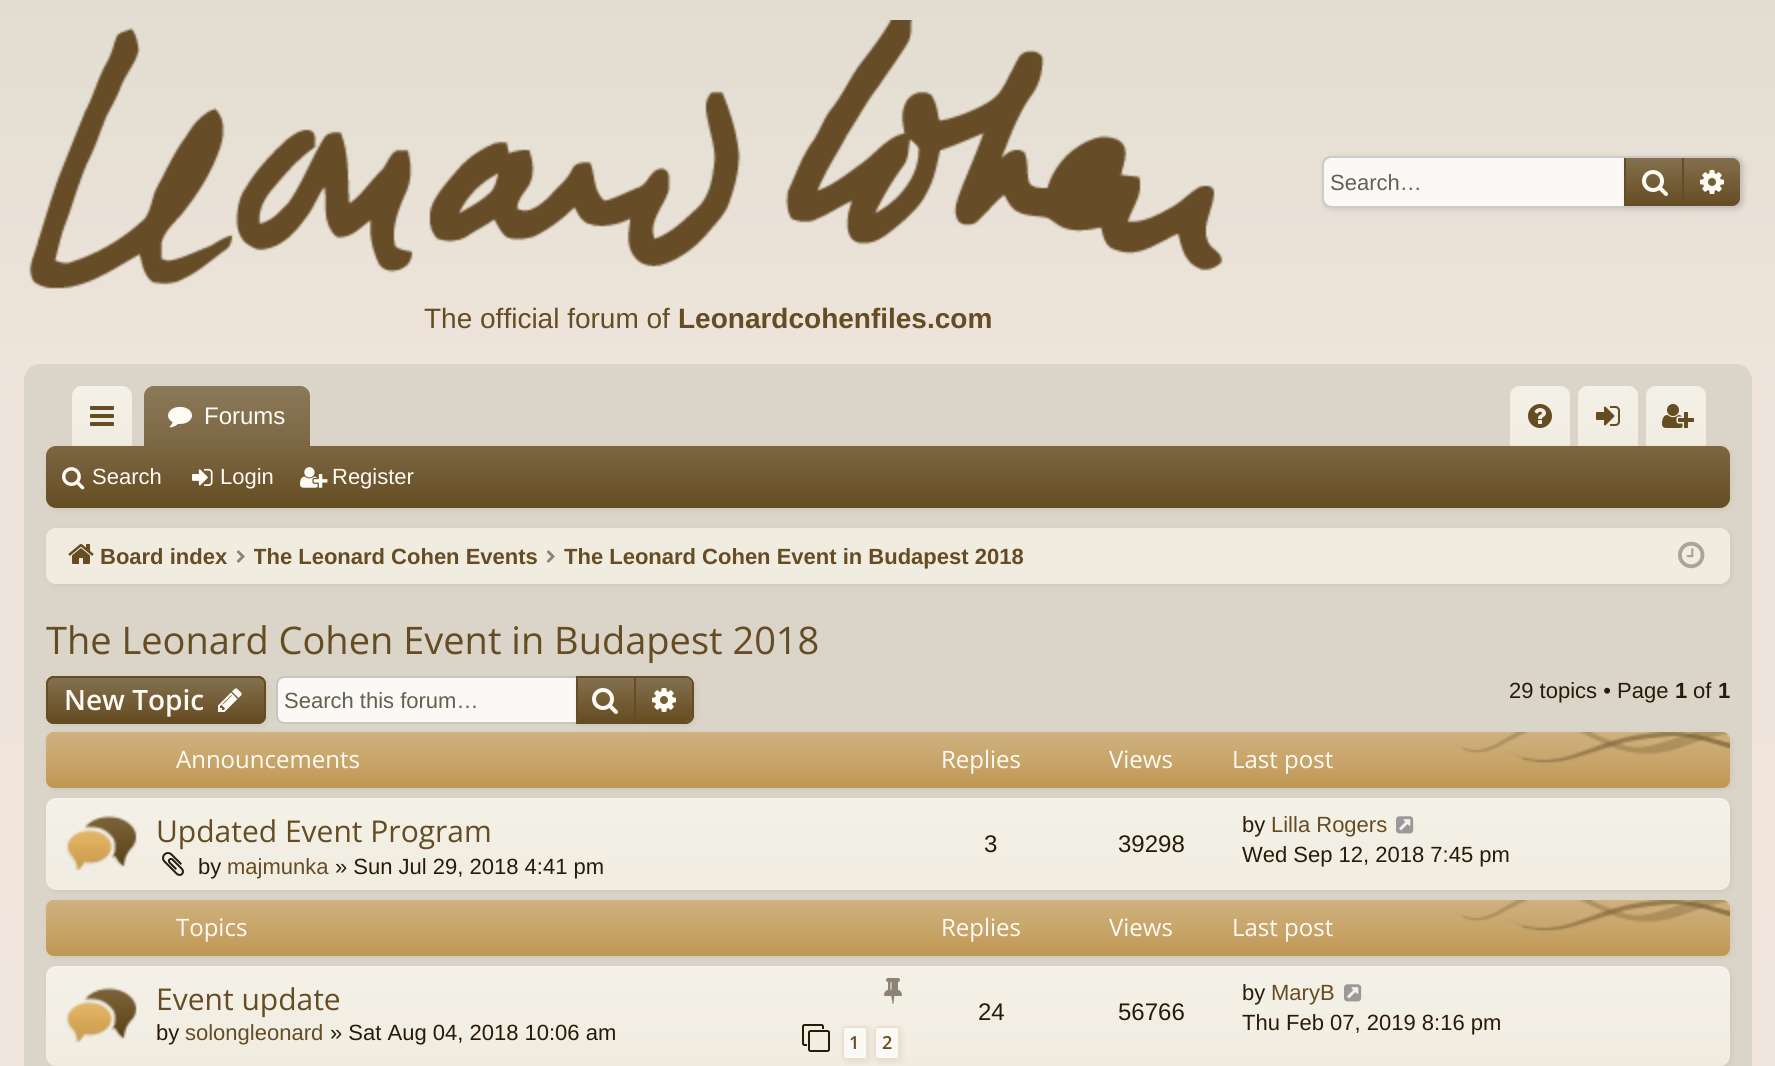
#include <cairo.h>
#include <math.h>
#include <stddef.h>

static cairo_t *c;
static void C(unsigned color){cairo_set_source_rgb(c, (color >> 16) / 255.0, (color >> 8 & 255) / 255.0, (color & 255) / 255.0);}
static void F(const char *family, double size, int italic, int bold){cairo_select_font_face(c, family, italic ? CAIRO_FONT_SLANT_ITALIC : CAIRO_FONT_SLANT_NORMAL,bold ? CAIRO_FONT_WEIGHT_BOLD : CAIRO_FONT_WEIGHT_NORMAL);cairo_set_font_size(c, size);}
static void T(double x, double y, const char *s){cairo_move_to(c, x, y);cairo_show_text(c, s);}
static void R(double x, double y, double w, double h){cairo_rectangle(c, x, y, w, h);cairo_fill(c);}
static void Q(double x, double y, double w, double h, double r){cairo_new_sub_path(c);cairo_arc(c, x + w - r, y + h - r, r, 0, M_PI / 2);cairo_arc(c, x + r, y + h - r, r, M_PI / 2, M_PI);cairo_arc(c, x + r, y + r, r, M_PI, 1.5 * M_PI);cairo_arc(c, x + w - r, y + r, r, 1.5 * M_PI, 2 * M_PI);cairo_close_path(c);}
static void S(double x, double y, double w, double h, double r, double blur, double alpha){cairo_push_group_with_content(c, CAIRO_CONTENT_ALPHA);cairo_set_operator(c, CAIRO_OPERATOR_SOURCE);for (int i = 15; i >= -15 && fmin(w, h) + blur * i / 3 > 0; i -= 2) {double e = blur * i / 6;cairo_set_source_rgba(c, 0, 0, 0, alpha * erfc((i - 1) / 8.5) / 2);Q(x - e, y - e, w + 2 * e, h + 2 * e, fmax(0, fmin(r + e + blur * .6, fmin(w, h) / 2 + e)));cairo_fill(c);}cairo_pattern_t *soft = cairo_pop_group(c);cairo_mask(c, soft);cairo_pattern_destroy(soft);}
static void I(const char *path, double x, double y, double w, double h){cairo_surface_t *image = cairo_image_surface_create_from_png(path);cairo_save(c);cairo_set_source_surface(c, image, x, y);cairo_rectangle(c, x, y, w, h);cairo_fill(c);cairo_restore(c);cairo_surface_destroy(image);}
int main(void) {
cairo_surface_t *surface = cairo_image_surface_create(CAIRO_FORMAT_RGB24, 1775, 1066);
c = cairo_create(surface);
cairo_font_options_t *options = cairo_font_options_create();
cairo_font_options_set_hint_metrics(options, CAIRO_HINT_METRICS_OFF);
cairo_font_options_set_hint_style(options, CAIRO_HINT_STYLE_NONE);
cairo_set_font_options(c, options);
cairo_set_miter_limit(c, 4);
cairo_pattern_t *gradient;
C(0xffffff);
cairo_paint(c);
gradient = cairo_pattern_create_linear(888,0,888,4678);
cairo_pattern_add_color_stop_rgba(gradient,0,0.886,0.867,0.82,1);
cairo_pattern_add_color_stop_rgba(gradient,.09,0.941,0.898,0.863,1);
cairo_pattern_add_color_stop_rgba(gradient,1,0.969,0.914,0.878,1);
cairo_set_source(c,gradient);
cairo_pattern_destroy(gradient);
R(0,0,1775,1066);
C(0x000000);
S(1324,158,420,52,8,3,.1);
Q(1323,157,418,50,7);
C(0xcccccc);
cairo_stroke(c);
C(0xfbf9f6);
cairo_new_path(c);
cairo_move_to(c,1332,158);
cairo_line_to(c,1624,158);
cairo_line_to(c,1624,206);
cairo_line_to(c,1332,206);
cairo_curve_to(c,1327.5,206,1324,202.5,1324,198);
cairo_line_to(c,1324,166);
cairo_curve_to(c,1324,161.5,1327.5,158,1332,158);
cairo_close_path(c);
cairo_fill(c);
F("Liberation Sans",22,0,0);
C(0x675e4f);
T(1330,190,"Search…");
C(0x654c22);
S(1626,160,60,48,0,3,.1);
gradient = cairo_pattern_create_linear(1654,158,1654,206);
cairo_pattern_add_color_stop_rgba(gradient,0,0.518,0.439,0.306,1);
cairo_pattern_add_color_stop_rgba(gradient,1,0.396,0.298,0.133,1);
cairo_set_source(c,gradient);
cairo_pattern_destroy(gradient);
R(1626,158,56,48);
C(0x654c22);
R(1682,158,2,48);
R(1624,158,2,48);
I("1.png",1642,170,26,26);
C(0x654c22);
S(1686,160,56,48,8,3,.1);
C(0x654c22);
cairo_new_path(c);
cairo_move_to(c,1684,158);
cairo_line_to(c,1732,158);
cairo_curve_to(c,1736.5,158,1740,161.5,1740,166);
cairo_line_to(c,1740,198);
cairo_curve_to(c,1740,202.5,1736.5,206,1732,206);
cairo_line_to(c,1684,206);
cairo_close_path(c);
cairo_fill(c);
gradient = cairo_pattern_create_linear(1712,158,1712,206);
cairo_pattern_add_color_stop_rgba(gradient,0,1,1,1,.2);
cairo_pattern_add_color_stop_rgba(gradient,1,1,1,1,0);
cairo_set_source(c,gradient);
cairo_pattern_destroy(gradient);
cairo_new_path(c);
cairo_move_to(c,1684,158);
cairo_line_to(c,1732,158);
cairo_curve_to(c,1736.5,158,1740,161.5,1740,166);
cairo_line_to(c,1740,198);
cairo_curve_to(c,1740,202.5,1736.5,206,1732,206);
cairo_line_to(c,1684,206);
cairo_close_path(c);
cairo_fill(c);
I("2.png",1700,170,24,24);
I("3.png",29,20,1194,269);
F("Liberation Sans",28,0,0);
C(0x654c22);
T(424,328,"The official forum of");
F("Liberation Sans",28,0,1);
T(678,328,"Leonardcohenfiles.com");
C(0xdbd5c9);
Q(25,365,1726,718,15);
cairo_fill_preserve(c);
cairo_stroke(c);
C(0xf0ece0);
cairo_new_path(c);
cairo_move_to(c,82,386);
cairo_line_to(c,122,386);
cairo_curve_to(c,127.5,386,132,390.5,132,396);
cairo_line_to(c,132,446);
cairo_line_to(c,72,446);
cairo_line_to(c,72,396);
cairo_curve_to(c,72,390.5,76.5,386,82,386);
cairo_close_path(c);
cairo_fill(c);
gradient = cairo_pattern_create_linear(102,386,102,446);
cairo_pattern_add_color_stop_rgba(gradient,0,1,1,1,.25);
cairo_pattern_add_color_stop_rgba(gradient,1,1,1,1,0);
cairo_set_source(c,gradient);
cairo_pattern_destroy(gradient);
cairo_new_path(c);
cairo_move_to(c,82,386);
cairo_line_to(c,122,386);
cairo_curve_to(c,127.5,386,132,390.5,132,396);
cairo_line_to(c,132,446);
cairo_line_to(c,72,446);
cairo_line_to(c,72,396);
cairo_curve_to(c,72,390.5,76.5,386,82,386);
cairo_close_path(c);
cairo_fill(c);
I("4.png",90,406,24,20);
C(0x654c22);
cairo_new_path(c);
cairo_move_to(c,154,386);
cairo_line_to(c,300,386);
cairo_curve_to(c,305.5,386,310,390.5,310,396);
cairo_line_to(c,310,446);
cairo_line_to(c,144,446);
cairo_line_to(c,144,396);
cairo_curve_to(c,144,390.5,148.5,386,154,386);
cairo_close_path(c);
cairo_fill(c);
gradient = cairo_pattern_create_linear(227,386,227,446);
cairo_pattern_add_color_stop_rgba(gradient,0,1,1,1,.25);
cairo_pattern_add_color_stop_rgba(gradient,1,1,1,1,.15);
cairo_set_source(c,gradient);
cairo_pattern_destroy(gradient);
cairo_new_path(c);
cairo_move_to(c,154,386);
cairo_line_to(c,300,386);
cairo_curve_to(c,305.5,386,310,390.5,310,396);
cairo_line_to(c,310,446);
cairo_line_to(c,144,446);
cairo_line_to(c,144,396);
cairo_curve_to(c,144,390.5,148.5,386,154,386);
cairo_close_path(c);
cairo_fill(c);
I("5.png",168,406,24,22);
F("Liberation Sans",24,0,0);
C(0xfefbf5);
T(204,424,"Forums");
C(0xf0ece0);
cairo_new_path(c);
cairo_move_to(c,1520,386);
cairo_line_to(c,1560,386);
cairo_curve_to(c,1565.5,386,1570,390.5,1570,396);
cairo_line_to(c,1570,446);
cairo_line_to(c,1510,446);
cairo_line_to(c,1510,396);
cairo_curve_to(c,1510,390.5,1514.5,386,1520,386);
cairo_close_path(c);
cairo_fill(c);
gradient = cairo_pattern_create_linear(1540,386,1540,446);
cairo_pattern_add_color_stop_rgba(gradient,0,1,1,1,.25);
cairo_pattern_add_color_stop_rgba(gradient,1,1,1,1,0);
cairo_set_source(c,gradient);
cairo_pattern_destroy(gradient);
cairo_new_path(c);
cairo_move_to(c,1520,386);
cairo_line_to(c,1560,386);
cairo_curve_to(c,1565.5,386,1570,390.5,1570,396);
cairo_line_to(c,1570,446);
cairo_line_to(c,1510,446);
cairo_line_to(c,1510,396);
cairo_curve_to(c,1510,390.5,1514.5,386,1520,386);
cairo_close_path(c);
cairo_fill(c);
C(0xf0ece0);
cairo_new_path(c);
cairo_move_to(c,1588,386);
cairo_line_to(c,1628,386);
cairo_curve_to(c,1633.5,386,1638,390.5,1638,396);
cairo_line_to(c,1638,446);
cairo_line_to(c,1578,446);
cairo_line_to(c,1578,396);
cairo_curve_to(c,1578,390.5,1582.5,386,1588,386);
cairo_close_path(c);
cairo_fill(c);
gradient = cairo_pattern_create_linear(1608,386,1608,446);
cairo_pattern_add_color_stop_rgba(gradient,0,1,1,1,.25);
cairo_pattern_add_color_stop_rgba(gradient,1,1,1,1,0);
cairo_set_source(c,gradient);
cairo_pattern_destroy(gradient);
cairo_new_path(c);
cairo_move_to(c,1588,386);
cairo_line_to(c,1628,386);
cairo_curve_to(c,1633.5,386,1638,390.5,1638,396);
cairo_line_to(c,1638,446);
cairo_line_to(c,1578,446);
cairo_line_to(c,1578,396);
cairo_curve_to(c,1578,390.5,1582.5,386,1588,386);
cairo_close_path(c);
cairo_fill(c);
C(0xf0ece0);
cairo_new_path(c);
cairo_move_to(c,1656,386);
cairo_line_to(c,1696,386);
cairo_curve_to(c,1701.5,386,1706,390.5,1706,396);
cairo_line_to(c,1706,446);
cairo_line_to(c,1646,446);
cairo_line_to(c,1646,396);
cairo_curve_to(c,1646,390.5,1650.5,386,1656,386);
cairo_close_path(c);
cairo_fill(c);
gradient = cairo_pattern_create_linear(1676,386,1676,446);
cairo_pattern_add_color_stop_rgba(gradient,0,1,1,1,.25);
cairo_pattern_add_color_stop_rgba(gradient,1,1,1,1,0);
cairo_set_source(c,gradient);
cairo_pattern_destroy(gradient);
cairo_new_path(c);
cairo_move_to(c,1656,386);
cairo_line_to(c,1696,386);
cairo_curve_to(c,1701.5,386,1706,390.5,1706,396);
cairo_line_to(c,1706,446);
cairo_line_to(c,1646,446);
cairo_line_to(c,1646,396);
cairo_curve_to(c,1646,390.5,1650.5,386,1656,386);
cairo_close_path(c);
cairo_fill(c);
C(0x654c22);
S(48,448,1684,62,10,3,.1);
C(0x654c22);
Q(46,446,1684,62,10);
cairo_fill(c);
gradient = cairo_pattern_create_linear(888,446,888,508);
cairo_pattern_add_color_stop_rgba(gradient,0,1,1,1,.15);
cairo_pattern_add_color_stop_rgba(gradient,1,1,1,1,0);
cairo_set_source(c,gradient);
cairo_pattern_destroy(gradient);
Q(46,446,1684,62,10);
cairo_fill(c);
C(0x654c22);
cairo_new_path(c);
cairo_move_to(c,148,444);
cairo_line_to(c,306,444);
cairo_curve_to(c,308,444,310,446,310,448);
cairo_line_to(c,144,448);
cairo_curve_to(c,144,446,146,444,148,444);
cairo_close_path(c);
cairo_fill(c);
cairo_set_source_rgba(c,1,1,1,0.15);
cairo_new_path(c);
cairo_move_to(c,148,444);
cairo_line_to(c,306,444);
cairo_curve_to(c,308,444,310,446,310,448);
cairo_line_to(c,144,448);
cairo_curve_to(c,144,446,146,444,148,444);
cairo_close_path(c);
cairo_fill(c);
I("6.png",1528,404,24,24);
I("7.png",1596,406,24,20);
I("8.png",1662,404,32,24);
I("9.png",62,467,23,23);
F("Liberation Sans",22,0,0);
C(0xfefbf5);
T(92,484,"Search");
I("10.png",192,468,21,18);
T(220,484,"Login");
I("11.png",300,467,28,21);
T(332,484,"Register");
C(0x654c22);
S(48,530,1684,56,10,3,.1);
C(0xf0ece0);
Q(46,528,1684,56,10);
cairo_fill(c);
I("12.png",68,544,26,20);
F("Liberation Sans",22,0,1);
C(0x654c22);
T(100,564,"Board index");
I("13.png",236,550,9,13);
cairo_save(c);
cairo_rectangle(c,254,534,284,44);
cairo_clip(c);
T(253,564,"The Leonard Cohen Events");
cairo_restore(c);
I("13.png",546,550,9,13);
T(564,564,"The Leonard Cohen Event in Budapest 2018");
I("14.png",1678,541,27,28);
F("Open Sans",38,0,0);
T(46,654,"The Leonard Cohen Event in Budapest 2018");
C(0x654c22);
S(48,678,220,48,8,3,.1);
C(0x654c22);
Q(46,676,220,48,8);
cairo_fill(c);
cairo_save(c);
Q(46,676,220,48,8);
cairo_clip(c);
gradient = cairo_pattern_create_linear(156,678,156,722);
cairo_pattern_add_color_stop_rgba(gradient,0,1,1,1,.2);
cairo_pattern_add_color_stop_rgba(gradient,1,1,1,1,0);
cairo_set_source(c,gradient);
cairo_pattern_destroy(gradient);
R(46,678,220,39);
cairo_restore(c);
Q(47,677,218,46,7);
cairo_stroke(c);
F("Open Sans SemiBold",28,0,0);
C(0xfefbf5);
T(64,710,"New Topic");
I("15.png",218,688,24,24);
C(0xfbf9f6);
cairo_new_path(c);
cairo_move_to(c,284,678);
cairo_line_to(c,576,678);
cairo_line_to(c,576,722);
cairo_line_to(c,284,722);
cairo_curve_to(c,280.5,722,278,719.5,278,716);
cairo_line_to(c,278,684);
cairo_curve_to(c,278,680.5,280.5,678,284,678);
cairo_close_path(c);
cairo_fill(c);
C(0xc6c6c6);
cairo_set_fill_rule(c,CAIRO_FILL_RULE_EVEN_ODD);
cairo_new_path(c);
cairo_move_to(c,284,676);
cairo_line_to(c,576,676);
cairo_line_to(c,576,724);
cairo_line_to(c,284,724);
cairo_curve_to(c,280,724,276,720,276,716);
cairo_line_to(c,276,684);
cairo_curve_to(c,276,680,280,676,284,676);
cairo_close_path(c);
cairo_move_to(c,284,678);
cairo_line_to(c,576,678);
cairo_line_to(c,576,722);
cairo_line_to(c,284,722);
cairo_curve_to(c,281,722,278,719,278,716);
cairo_line_to(c,278,684);
cairo_curve_to(c,278,681,281,678,284,678);
cairo_close_path(c);
cairo_fill(c);
F("Liberation Sans",22,0,0);
C(0x675e4f);
T(284,708,"Search this forum…");
C(0x654c22);
S(578,678,60,48,0,3,.1);
gradient = cairo_pattern_create_linear(606,678,606,722);
cairo_pattern_add_color_stop_rgba(gradient,0,0.518,0.439,0.306,1);
cairo_pattern_add_color_stop_rgba(gradient,1,0.396,0.298,0.133,1);
cairo_set_source(c,gradient);
cairo_pattern_destroy(gradient);
R(578,678,56,44);
cairo_rectangle(c,577,677,58,46);
C(0x654c22);
cairo_stroke(c);
I("16.png",592,688,26,26);
C(0x654c22);
S(638,678,58,48,8,3,.1);
C(0x654c22);
cairo_new_path(c);
cairo_move_to(c,636,678);
cairo_line_to(c,686,678);
cairo_curve_to(c,689.5,678,692,680.5,692,684);
cairo_line_to(c,692,716);
cairo_curve_to(c,692,719.5,689.5,722,686,722);
cairo_line_to(c,636,722);
cairo_close_path(c);
cairo_fill(c);
gradient = cairo_pattern_create_linear(664,678,664,722);
cairo_pattern_add_color_stop_rgba(gradient,0,1,1,1,.2);
cairo_pattern_add_color_stop_rgba(gradient,1,1,1,1,0);
cairo_set_source(c,gradient);
cairo_pattern_destroy(gradient);
cairo_new_path(c);
cairo_move_to(c,636,678);
cairo_line_to(c,686,678);
cairo_curve_to(c,689.5,678,692,680.5,692,684);
cairo_line_to(c,692,716);
cairo_curve_to(c,692,719.5,689.5,722,686,722);
cairo_line_to(c,636,722);
cairo_close_path(c);
cairo_fill(c);
C(0x654c22);
cairo_new_path(c);
cairo_move_to(c,636,676);
cairo_line_to(c,686,676);
cairo_curve_to(c,690,676,694,680,694,684);
cairo_line_to(c,694,716);
cairo_curve_to(c,694,720,690,724,686,724);
cairo_line_to(c,636,724);
cairo_close_path(c);
cairo_move_to(c,636,678);
cairo_line_to(c,686,678);
cairo_curve_to(c,689,678,692,681,692,684);
cairo_line_to(c,692,716);
cairo_curve_to(c,692,719,689,722,686,722);
cairo_line_to(c,636,722);
cairo_close_path(c);
cairo_fill(c);
I("17.png",652,688,24,24);
C(0x271b08);
T(1509,698,"29 topics • Page");
F("Liberation Sans",22,0,1);
T(1675,698,"1");
F("Liberation Sans",22,0,0);
T(1693,698,"of");
F("Liberation Sans",22,0,1);
T(1718,698,"1");
C(0x654c22);
S(48,800,1684,92,10,3,.1);
C(0xf0ece0);
Q(46,798,1684,92,10);
cairo_fill(c);
gradient = cairo_pattern_create_linear(888,798,888,890);
cairo_pattern_add_color_stop_rgba(gradient,0,1,1,1,.25);
cairo_pattern_add_color_stop_rgba(gradient,1,1,1,1,0);
cairo_set_source(c,gradient);
cairo_pattern_destroy(gradient);
Q(46,798,1684,92,10);
cairo_fill(c);
C(0x654c22);
S(48,734,1684,56,8,3,.1);
C(0xc09855);
Q(46,732,1684,56,8);
cairo_fill(c);
I("18.png",46,732,1684,50);
F("Open Sans",24,0,0);
C(0xfefbf5);
T(176,768,"Announcements");
T(941,768,"Replies");
T(1109,768,"Views");
T(1232,768,"Last post");
I("19.png",66,815,71,56);
F("Open Sans",30,0,0);
C(0x654c22);
T(156,842,"Updated Event Program");
I("20.png",162,852,22,24);
F("Liberation Sans",22,0,0);
C(0x271b08);
T(198,874,"by");
C(0x654c22);
T(227,874,"majmunka");
C(0x271b08);
T(335,874,"» Sun Jul 29, 2018 4:41 pm");
F("Liberation Sans",24,0,0);
T(984,852,"3");
T(1118,852,"39298");
F("Liberation Sans",22,0,0);
T(1242,832,"by");
C(0x654c22);
T(1271,832,"Lilla Rogers");
I("21.png",1396,816,18,18);
C(0x271b08);
T(1242,862,"Wed Sep 12, 2018 7:45 pm");
C(0x654c22);
S(48,968,1684,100,10,3,.1);
C(0xf0ece0);
Q(46,966,1684,100,10);
cairo_fill(c);
gradient = cairo_pattern_create_linear(888,966,888,1066);
cairo_pattern_add_color_stop_rgba(gradient,0,1,1,1,.25);
cairo_pattern_add_color_stop_rgba(gradient,1,1,1,1,0);
cairo_set_source(c,gradient);
cairo_pattern_destroy(gradient);
Q(46,966,1684,100,10);
cairo_fill(c);
C(0x654c22);
S(48,902,1684,56,8,3,.1);
C(0xc09855);
Q(46,900,1684,56,8);
cairo_fill(c);
I("22.png",46,900,1684,50);
F("Open Sans",24,0,0);
C(0xfefbf5);
T(176,936,"Topics");
T(941,936,"Replies");
T(1109,936,"Views");
T(1232,936,"Last post");
I("23.png",66,987,71,56);
F("Open Sans",30,0,0);
C(0x654c22);
T(156,1010,"Event update");
I("24.png",884,978,18,26);
F("Liberation Sans",22,0,0);
C(0x271b08);
T(156,1040,"by");
C(0x654c22);
T(185,1040,"solongleonard");
C(0x271b08);
T(330,1040,"» Sat Aug 04, 2018 10:06 am");
I("25.png",802,1024,28,28);
C(0x654c22);
S(844,1028,26,34,4,3,.1);
C(0xfbf9f6);
Q(842,1026,26,34,4);
cairo_fill(c);
gradient = cairo_pattern_create_linear(855,1028,855,1058);
cairo_pattern_add_color_stop_rgba(gradient,0,1,1,1,.2);
cairo_pattern_add_color_stop_rgba(gradient,1,1,1,1,0);
cairo_set_source(c,gradient);
cairo_pattern_destroy(gradient);
R(842,1028,26,1);
Q(843,1027,24,32,3);
C(0xe8e1cf);
cairo_stroke(c);
F("Open Sans SemiBold",18,0,0);
C(0x654c22);
T(849,1049,"1");
C(0x654c22);
S(876,1028,26,34,4,3,.1);
C(0xfbf9f6);
Q(874,1026,26,34,4);
cairo_fill(c);
gradient = cairo_pattern_create_linear(887,1028,887,1058);
cairo_pattern_add_color_stop_rgba(gradient,0,1,1,1,.2);
cairo_pattern_add_color_stop_rgba(gradient,1,1,1,1,0);
cairo_set_source(c,gradient);
cairo_pattern_destroy(gradient);
R(874,1028,26,1);
Q(875,1027,24,32,3);
C(0xe8e1cf);
cairo_stroke(c);
C(0x654c22);
T(882,1049,"2");
F("Liberation Sans",24,0,0);
C(0x271b08);
T(978,1020,"24");
T(1118,1020,"56766");
F("Liberation Sans",22,0,0);
T(1242,1000,"by");
C(0x654c22);
T(1271,1000,"MaryB");
I("26.png",1344,984,18,18);
C(0x271b08);
T(1242,1030,"Thu Feb 07, 2019 8:16 pm");
cairo_surface_write_to_png(surface, "o.png");
cairo_font_options_destroy(options);
cairo_destroy(c);
cairo_surface_destroy(surface);
return 0;
}
